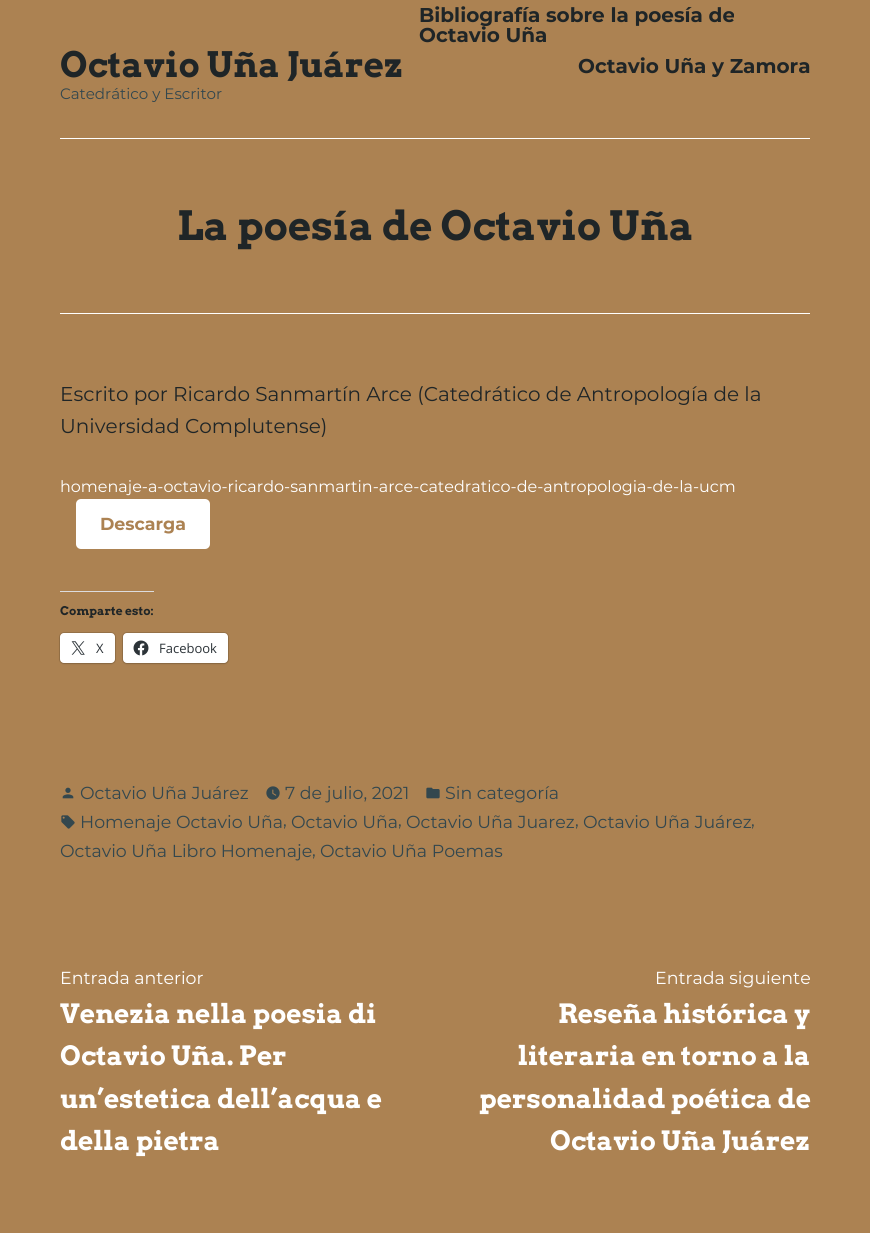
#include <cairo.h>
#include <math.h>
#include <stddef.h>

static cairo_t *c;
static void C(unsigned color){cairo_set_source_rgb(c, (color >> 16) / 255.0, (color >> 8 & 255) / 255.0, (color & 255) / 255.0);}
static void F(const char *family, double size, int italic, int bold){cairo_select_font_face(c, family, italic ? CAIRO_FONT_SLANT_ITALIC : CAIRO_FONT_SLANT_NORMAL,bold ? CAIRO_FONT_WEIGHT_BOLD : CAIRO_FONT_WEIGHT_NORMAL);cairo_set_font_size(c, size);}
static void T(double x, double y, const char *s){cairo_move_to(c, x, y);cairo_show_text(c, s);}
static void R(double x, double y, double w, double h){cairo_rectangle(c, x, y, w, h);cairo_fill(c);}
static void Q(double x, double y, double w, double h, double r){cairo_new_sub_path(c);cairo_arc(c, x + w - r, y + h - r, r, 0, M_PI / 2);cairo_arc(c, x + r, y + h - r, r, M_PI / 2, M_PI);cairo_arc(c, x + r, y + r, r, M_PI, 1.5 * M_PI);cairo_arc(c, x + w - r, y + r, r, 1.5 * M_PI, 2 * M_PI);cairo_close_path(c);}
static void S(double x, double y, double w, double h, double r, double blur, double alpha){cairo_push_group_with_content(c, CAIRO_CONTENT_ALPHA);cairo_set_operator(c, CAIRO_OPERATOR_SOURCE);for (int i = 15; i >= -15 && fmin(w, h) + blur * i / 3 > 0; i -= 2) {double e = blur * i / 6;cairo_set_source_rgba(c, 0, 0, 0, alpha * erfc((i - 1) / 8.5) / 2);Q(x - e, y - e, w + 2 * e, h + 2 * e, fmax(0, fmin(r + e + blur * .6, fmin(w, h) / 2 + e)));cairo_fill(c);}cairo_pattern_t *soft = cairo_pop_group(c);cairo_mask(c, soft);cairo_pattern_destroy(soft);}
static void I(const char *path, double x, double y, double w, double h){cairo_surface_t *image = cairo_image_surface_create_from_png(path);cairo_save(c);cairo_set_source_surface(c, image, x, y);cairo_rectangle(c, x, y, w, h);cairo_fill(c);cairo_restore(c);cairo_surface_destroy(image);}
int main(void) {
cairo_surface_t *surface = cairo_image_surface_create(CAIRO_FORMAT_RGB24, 870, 1233);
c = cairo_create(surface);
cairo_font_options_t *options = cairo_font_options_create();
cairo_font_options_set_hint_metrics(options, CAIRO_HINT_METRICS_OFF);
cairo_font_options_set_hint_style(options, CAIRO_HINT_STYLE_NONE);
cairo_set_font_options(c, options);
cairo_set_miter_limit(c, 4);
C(0xac8252);
cairo_paint(c);
F("Arvo",35,0,1);
C(0x1f2527);
T(60,77,"Octavio Uña Juárez");
F("Montserrat",20,0,1);
T(419,22,"Bibliografía sobre la poesía de");
T(419,42,"Octavio Uña");
T(578,73,"Octavio Uña y Zamora");
F("Montserrat",15.1,0,0);
C(0x33474e);
T(60,99,"Catedrático y Escritor");
C(0xffffff);
R(60,138,750,1);
F("Arvo",40.25,0,1);
C(0x1f2527);
T(177,240,"La poesía de Octavio Uña");
C(0xffffff);
R(60,313,750,1);
F("Montserrat",20,0,0);
C(0x1f2527);
T(60,401,"Escrito por Ricardo Sanmartín Arce (Catedrático de Antropología de la");
T(60,433,"Universidad Complutense)");
F("Montserrat",16,0,0);
C(0xffffff);
T(60,492,"homenaje-a-octavio-ricardo-sanmartin-arce-catedratico-de-antropologia-de-la-ucm");
Q(76,499,134,50,5);
cairo_fill(c);
F("Montserrat",17.4,0,1);
C(0xac8252);
T(100,530,"Descarga");
C(0xdcdcde);
R(60,591,94,1);
F("Arvo",12,0,1);
C(0x1f2527);
T(60,615,"Comparte esto:");
Q(59.5,632.5,56,31,4.5);
C(0x977248);
cairo_set_line_width(c,1);
cairo_stroke(c);
C(0x000000);
S(60,634,55,30,4,1,.12);
C(0xffffff);
Q(60,633,55,30,4);
cairo_fill(c);
I("1.png",71,641,14,14);
F("Open Sans",13,0,0);
C(0x2c3338);
T(96,653,"X");
Q(122.5,632.5,106,31,4.5);
C(0x977248);
cairo_stroke(c);
C(0x000000);
S(123,634,105,30,4,1,.12);
C(0xffffff);
Q(123,633,105,30,4);
cairo_fill(c);
I("2.png",133,640,16,16);
C(0x2c3338);
T(159,653,"Facebook");
I("3.png",62,787,12,12);
F("Montserrat",17.4,0,0);
C(0x33474e);
T(80,799,"Octavio Uña Juárez");
I("4.png",266,786,14,14);
T(285,799,"7 de julio, 2021");
I("5.png",426,787,14,12);
T(445,799,"Sin categoría");
I("6.png",61,815,14,14);
T(80,828,"Homenaje Octavio Uña");
T(283,826,",");
T(291,828,"Octavio Uña");
T(398,826,",");
T(406,828,"Octavio Uña Juarez");
T(575,826,",");
T(583,828,"Octavio Uña Juárez");
T(751,826,",");
T(60,857,"Octavio Uña Libro Homenaje");
T(312,856,",");
T(320,857,"Octavio Uña Poemas");
C(0xffffff);
T(60,984,"Entrada anterior");
F("Arvo",26.5,0,1);
T(60,1023,"Venezia nella poesia di");
T(60,1065,"Octavio Uña. Per");
T(60,1108,"un’estetica dell’acqua e");
T(60,1150,"della pietra");
F("Montserrat",17.4,0,0);
T(655,984,"Entrada siguiente");
F("Arvo",26.5,0,1);
T(558,1023,"Reseña histórica y");
T(518,1065,"literaria en torno a la");
T(479,1108,"personalidad poética de");
T(550,1150,"Octavio Uña Juárez");
cairo_surface_write_to_png(surface, "o.png");
cairo_font_options_destroy(options);
cairo_destroy(c);
cairo_surface_destroy(surface);
return 0;
}
